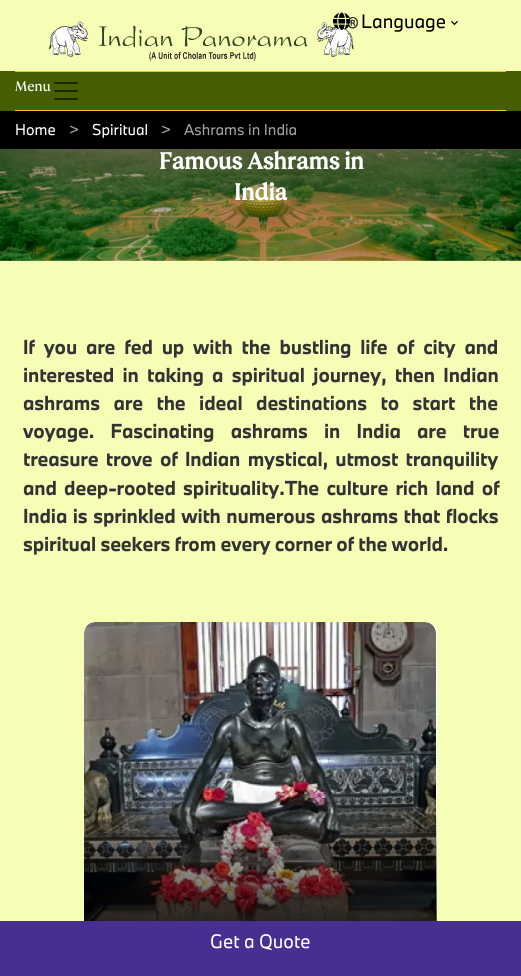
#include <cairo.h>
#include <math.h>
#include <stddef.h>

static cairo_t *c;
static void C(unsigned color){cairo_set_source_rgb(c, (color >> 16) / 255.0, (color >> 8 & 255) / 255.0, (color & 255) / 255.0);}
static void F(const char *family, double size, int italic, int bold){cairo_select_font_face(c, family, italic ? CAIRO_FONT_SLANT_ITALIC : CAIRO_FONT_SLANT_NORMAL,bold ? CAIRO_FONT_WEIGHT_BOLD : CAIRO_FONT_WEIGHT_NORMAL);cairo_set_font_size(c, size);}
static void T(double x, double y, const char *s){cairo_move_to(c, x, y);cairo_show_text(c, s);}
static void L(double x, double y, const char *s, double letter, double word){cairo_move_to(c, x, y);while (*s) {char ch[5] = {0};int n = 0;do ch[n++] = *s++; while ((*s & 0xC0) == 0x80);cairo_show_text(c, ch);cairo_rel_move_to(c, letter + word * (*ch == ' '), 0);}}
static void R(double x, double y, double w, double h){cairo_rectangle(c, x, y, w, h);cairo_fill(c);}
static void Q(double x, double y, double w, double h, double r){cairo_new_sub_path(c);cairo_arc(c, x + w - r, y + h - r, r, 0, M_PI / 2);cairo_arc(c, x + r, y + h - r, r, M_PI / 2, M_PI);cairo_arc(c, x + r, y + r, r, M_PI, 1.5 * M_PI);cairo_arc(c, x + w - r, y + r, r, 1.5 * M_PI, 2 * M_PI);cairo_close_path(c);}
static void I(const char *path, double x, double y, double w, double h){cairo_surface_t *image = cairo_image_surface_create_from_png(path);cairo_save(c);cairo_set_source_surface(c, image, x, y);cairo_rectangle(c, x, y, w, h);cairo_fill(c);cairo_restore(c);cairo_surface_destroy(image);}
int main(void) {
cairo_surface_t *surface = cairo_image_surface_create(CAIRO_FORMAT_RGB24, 521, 976);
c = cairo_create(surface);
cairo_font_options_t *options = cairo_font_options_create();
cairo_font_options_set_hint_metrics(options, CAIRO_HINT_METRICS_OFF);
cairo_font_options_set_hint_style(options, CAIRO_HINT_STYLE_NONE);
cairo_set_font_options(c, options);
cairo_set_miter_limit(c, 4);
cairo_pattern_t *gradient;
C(0xf6feb5);
cairo_paint(c);
I("1.png",49,17,309,44);
I("2.png",333,12,18,18);
F("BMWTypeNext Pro",18,0,0);
C(0x000000);
T(361,28,"Language");
I("3.png",451,21,7,4);
C(0x445e00);
R(0,71,521,40);
C(0xf7c32e);
R(15,71,491,1);
R(15,110,491,1);
F("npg",15,0,0);
C(0xf7f8f9);
T(15,91,"Menu");
I("4.png",54,82,24,18);
C(0x000000);
R(0,111,521,38);
F("BMWTypeNext Pro",14.5,0,0);
C(0xffffff);
T(15,135,"Home");
C(0xa1a1a8);
T(69,135,">");
C(0xffffff);
T(92,135,"Spiritual");
C(0xa1a1a8);
T(161,135,">");
T(184,135,"Ashrams in India");
I("5.png",0,149,521,112);
F("npg",25,0,1);
C(0xffffff);
T(159,169,"Famous Ashrams in");
T(234,200,"India");
F("BMWTypeNext Pro",18.75,0,1);
C(0x333333);
L(23,354,"If you are fed up with the bustling life of city and",-.15,4.6);
L(23,382,"interested in taking a spiritual journey, then Indian",-.15,4);
L(23,410,"ashrams are the ideal destinations to start the",-.15,9.25);
L(23,438,"voyage. Fascinating ashrams in India are true",-.15,12);
L(23,466,"treasure trove of Indian mystical, utmost tranquility",-.15,3);
L(23,495,"and deep-rooted spirituality.The culture rich land of",-.15,3);
L(23,523,"India is sprinkled with numerous ashrams that flocks",-.15,1.25);
L(23,551,"spiritual seekers from every corner of the world.",-.15,0);
C(0xffffff);
Q(84,622,353,352,11);
cairo_fill(c);
I("6.png",84,622,352,299);
gradient = cairo_pattern_create_linear(261,798,261,974);
cairo_pattern_add_color_stop_rgba(gradient,0,0,0,0,0);
cairo_pattern_add_color_stop_rgba(gradient,1,0,0,0,1);
cairo_set_source(c,gradient);
cairo_pattern_destroy(gradient);
R(84,802,353,119);
C(0x472f92);
R(0,921,521,55);
F("BMWTypeNext Pro",18,0,0);
C(0xffffff);
T(210,948,"Get a Quote");
cairo_surface_write_to_png(surface, "o.png");
cairo_font_options_destroy(options);
cairo_destroy(c);
cairo_surface_destroy(surface);
return 0;
}
